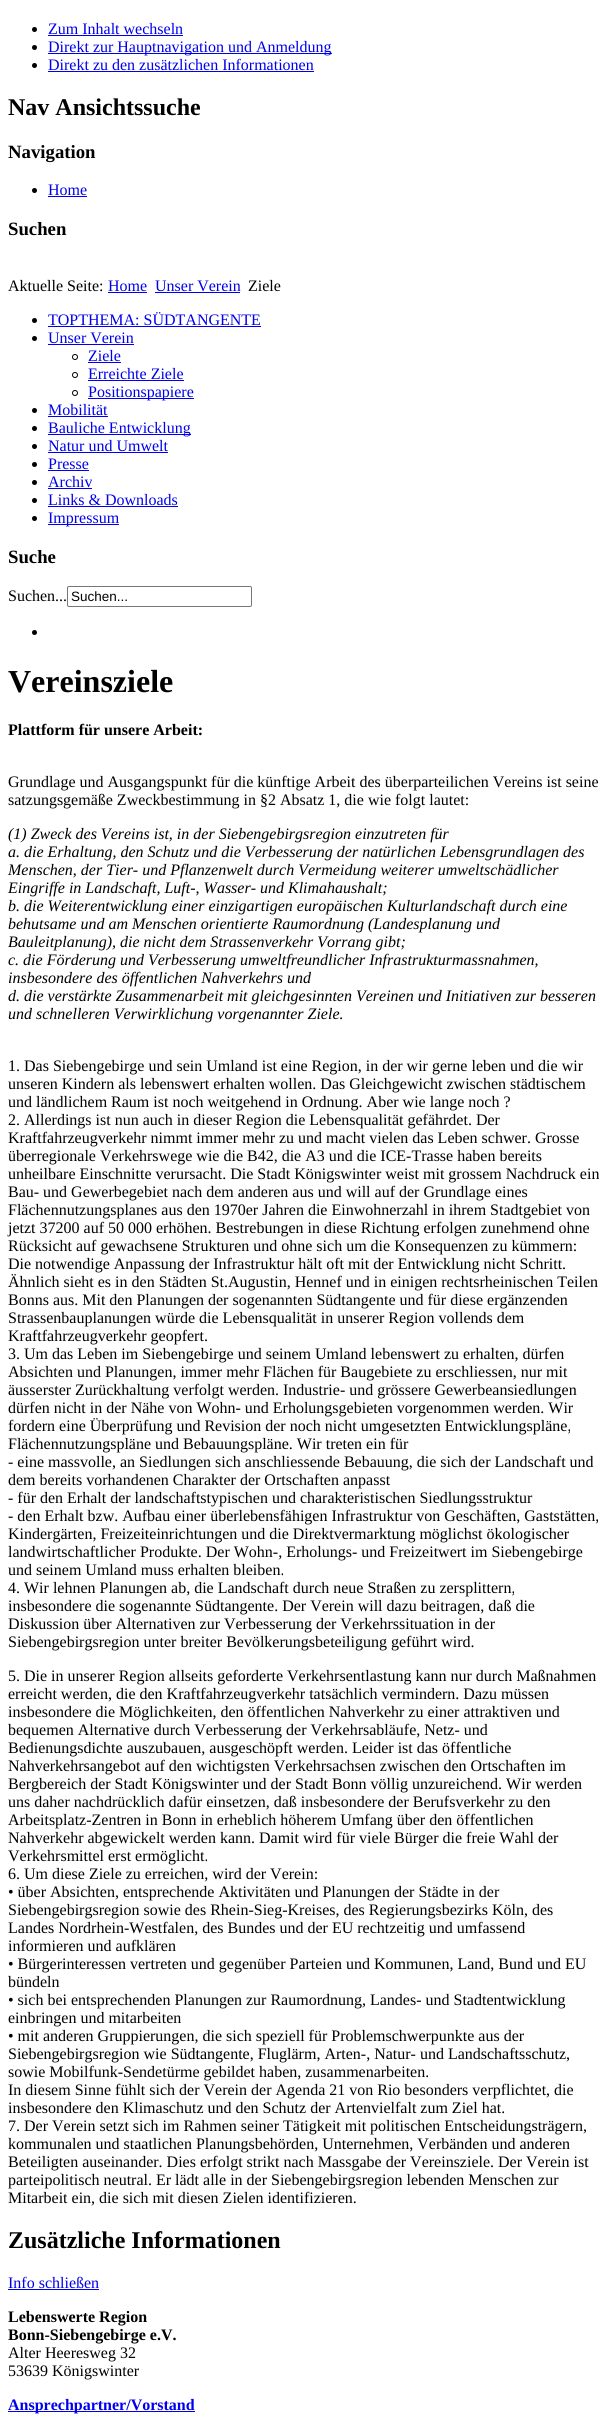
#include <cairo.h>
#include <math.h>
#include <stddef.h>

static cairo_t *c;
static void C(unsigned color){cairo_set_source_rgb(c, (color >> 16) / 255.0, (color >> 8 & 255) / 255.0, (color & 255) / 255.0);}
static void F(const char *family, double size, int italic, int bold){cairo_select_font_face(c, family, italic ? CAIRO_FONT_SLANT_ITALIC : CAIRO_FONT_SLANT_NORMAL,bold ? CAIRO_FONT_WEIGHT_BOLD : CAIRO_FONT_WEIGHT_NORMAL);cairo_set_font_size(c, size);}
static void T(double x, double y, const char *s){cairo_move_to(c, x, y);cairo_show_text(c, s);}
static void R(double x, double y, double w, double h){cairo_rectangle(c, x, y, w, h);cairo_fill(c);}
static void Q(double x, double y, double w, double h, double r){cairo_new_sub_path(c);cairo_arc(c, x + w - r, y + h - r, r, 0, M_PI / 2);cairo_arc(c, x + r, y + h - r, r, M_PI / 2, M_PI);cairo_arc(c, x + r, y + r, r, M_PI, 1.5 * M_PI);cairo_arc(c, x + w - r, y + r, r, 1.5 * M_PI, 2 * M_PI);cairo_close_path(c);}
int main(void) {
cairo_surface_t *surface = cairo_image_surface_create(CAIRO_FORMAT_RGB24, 608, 2425);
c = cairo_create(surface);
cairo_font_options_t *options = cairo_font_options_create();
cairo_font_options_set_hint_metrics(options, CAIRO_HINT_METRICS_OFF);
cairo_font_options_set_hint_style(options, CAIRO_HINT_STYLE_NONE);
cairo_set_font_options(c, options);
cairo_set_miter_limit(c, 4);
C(0xffffff);
cairo_paint(c);
C(0x000000);
cairo_arc(c,34.5,29.5,2.5,0,2 * M_PI);
cairo_fill(c);
F("Liberation Serif",16,0,0);
C(0x0000ee);
T(48,34,"Zum Inhalt wechseln");
R(48,35,135,1);
C(0x000000);
cairo_new_path(c);
cairo_arc(c,34.5,47.5,2.5,0,2 * M_PI);
cairo_fill(c);
C(0x0000ee);
R(48,53,284,1);
T(48,52,"Direkt zur Hauptnavigation und Anmeldung");
C(0x000000);
cairo_new_path(c);
cairo_arc(c,34.5,65.5,2.5,0,2 * M_PI);
cairo_fill(c);
C(0x0000ee);
T(48,70,"Direkt zu den zusätzlichen Informationen");
R(48,71,266,1);
F("Liberation Serif",24,0,1);
C(0x000000);
T(8,115,"Nav Ansichtssuche");
F("Liberation Serif",18.75,0,1);
T(8,158,"Navigation");
cairo_new_path(c);
cairo_arc(c,34.5,190.5,2.5,0,2 * M_PI);
cairo_fill(c);
F("Liberation Serif",16,0,0);
C(0x0000ee);
T(48,195,"Home");
R(48,196,39,1);
F("Liberation Serif",18.75,0,1);
C(0x000000);
T(8,235,"Suchen");
F("Liberation Serif",16,0,0);
T(8,291,"Aktuelle Seite:");
C(0x0000ee);
T(108,291,"Home");
R(108,292,39,1);
T(155,291,"Unser Verein");
R(155,292,85,1);
C(0x000000);
T(248,291,"Ziele");
cairo_new_path(c);
cairo_arc(c,34.5,320.5,2.5,0,2 * M_PI);
cairo_fill(c);
C(0x0000ee);
T(48,325,"TOPTHEMA: SÜDTANGENTE");
R(48,326,213,1);
C(0x000000);
cairo_new_path(c);
cairo_arc(c,34.5,338.5,2.5,0,2 * M_PI);
cairo_fill(c);
C(0x0000ee);
T(48,343,"Unser Verein");
R(48,344,86,1);
cairo_new_path(c);
cairo_arc(c,75,357,2.5,0,2 * M_PI);
C(0x000000);
cairo_set_line_width(c,1);
cairo_stroke(c);
C(0x0000ee);
T(88,361,"Ziele");
R(88,362,33,1);
cairo_new_path(c);
cairo_arc(c,75,375,2.5,0,2 * M_PI);
C(0x000000);
cairo_stroke(c);
C(0x0000ee);
T(88,379,"Erreichte Ziele");
R(88,380,96,1);
cairo_new_path(c);
cairo_arc(c,75,393,2.5,0,2 * M_PI);
C(0x000000);
cairo_stroke(c);
C(0x0000ee);
R(88,398,106,1);
T(88,397,"Positionspapiere");
C(0x000000);
cairo_new_path(c);
cairo_arc(c,34.5,410.5,2.5,0,2 * M_PI);
cairo_fill(c);
C(0x0000ee);
T(48,415,"Mobilität");
R(48,416,60,1);
C(0x000000);
cairo_new_path(c);
cairo_arc(c,34.5,428.5,2.5,0,2 * M_PI);
cairo_fill(c);
C(0x0000ee);
R(48,434,143,1);
T(48,433,"Bauliche Entwicklung");
C(0x000000);
cairo_new_path(c);
cairo_arc(c,34.5,446.5,2.5,0,2 * M_PI);
cairo_fill(c);
C(0x0000ee);
T(48,451,"Natur und Umwelt");
R(48,452,120,1);
C(0x000000);
cairo_new_path(c);
cairo_arc(c,34.5,464.5,2.5,0,2 * M_PI);
cairo_fill(c);
C(0x0000ee);
T(48,469,"Presse");
R(48,470,41,1);
C(0x000000);
cairo_new_path(c);
cairo_arc(c,34.5,482.5,2.5,0,2 * M_PI);
cairo_fill(c);
C(0x0000ee);
T(48,487,"Archiv");
R(48,488,44,1);
C(0x000000);
cairo_new_path(c);
cairo_arc(c,34.5,500.5,2.5,0,2 * M_PI);
cairo_fill(c);
C(0x0000ee);
T(48,505,"Links & Downloads");
R(48,506,130,1);
C(0x000000);
cairo_new_path(c);
cairo_arc(c,34.5,518.5,2.5,0,2 * M_PI);
cairo_fill(c);
C(0x0000ee);
R(48,524,71,1);
T(48,523,"Impressum");
F("Liberation Serif",18.75,0,1);
C(0x000000);
T(8,563,"Suche");
F("Liberation Serif",16,0,0);
T(8,601,"Suchen...");
Q(67.5,586.5,184,20,1.5);
C(0x767676);
cairo_stroke(c);
F("Liberation Sans",13.5,0,0);
C(0x000000);
T(71,601,"Suchen...");
cairo_new_path(c);
cairo_arc(c,34.5,632.5,2.5,0,2 * M_PI);
cairo_fill(c);
F("Liberation Serif",32,0,1);
T(8,692,"Vereinsziele");
F("Liberation Serif",16,0,1);
T(8,735,"Plattform für unsere Arbeit:");
F("Liberation Serif",16,0,0);
T(8,787,"Grundlage und Ausgangspunkt für die künftige Arbeit des überparteilichen Vereins ist seine");
T(8,805,"satzungsgemäße Zweckbestimmung in §2 Absatz 1, die wie folgt lautet:");
F("Liberation Serif",16,1,0);
T(8,839,"(1) Zweck des Vereins ist, in der Siebengebirgsregion einzutreten für");
T(8,857,"a. die Erhaltung, den Schutz und die Verbesserung der natürlichen Lebensgrundlagen des");
T(8,875,"Menschen, der Tier- und Pflanzenwelt durch Vermeidung weiterer umweltschädlicher");
T(8,893,"Eingriffe in Landschaft, Luft-, Wasser- und Klimahaushalt;");
T(8,911,"b. die Weiterentwicklung einer einzigartigen europäischen Kulturlandschaft durch eine");
T(8,929,"behutsame und am Menschen orientierte Raumordnung (Landesplanung und");
T(8,947,"Bauleitplanung), die nicht dem Strassenverkehr Vorrang gibt;");
T(8,965,"c. die Förderung und Verbesserung umweltfreundlicher Infrastrukturmassnahmen,");
T(8,983,"insbesondere des öffentlichen Nahverkehrs und");
T(8,1001,"d. die verstärkte Zusammenarbeit mit gleichgesinnten Vereinen und Initiativen zur besseren");
T(8,1019,"und schnelleren Verwirklichung vorgenannter Ziele.");
F("Liberation Serif",16,0,0);
T(8,1071,"1. Das Siebengebirge und sein Umland ist eine Region, in der wir gerne leben und die wir");
T(8,1089,"unseren Kindern als lebenswert erhalten wollen. Das Gleichgewicht zwischen städtischem");
T(8,1107,"und ländlichem Raum ist noch weitgehend in Ordnung. Aber wie lange noch ?");
T(8,1125,"2. Allerdings ist nun auch in dieser Region die Lebensqualität gefährdet. Der");
T(8,1143,"Kraftfahrzeugverkehr nimmt immer mehr zu und macht vielen das Leben schwer. Grosse");
T(8,1161,"überregionale Verkehrswege wie die B42, die A3 und die ICE-Trasse haben bereits");
T(8,1179,"unheilbare Einschnitte verursacht. Die Stadt Königswinter weist mit grossem Nachdruck ein");
T(8,1197,"Bau- und Gewerbegebiet nach dem anderen aus und will auf der Grundlage eines");
T(8,1215,"Flächennutzungsplanes aus den 1970er Jahren die Einwohnerzahl in ihrem Stadtgebiet von");
T(8,1233,"jetzt 37200 auf 50 000 erhöhen. Bestrebungen in diese Richtung erfolgen zunehmend ohne");
T(8,1251,"Rücksicht auf gewachsene Strukturen und ohne sich um die Konsequenzen zu kümmern:");
T(8,1269,"Die notwendige Anpassung der Infrastruktur hält oft mit der Entwicklung nicht Schritt.");
T(8,1287,"Ähnlich sieht es in den Städten St.Augustin, Hennef und in einigen rechtsrheinischen Teilen");
T(8,1305,"Bonns aus. Mit den Planungen der sogenannten Südtangente und für diese ergänzenden");
T(8,1323,"Strassenbauplanungen würde die Lebensqualität in unserer Region vollends dem");
T(8,1341,"Kraftfahrzeugverkehr geopfert.");
T(8,1359,"3. Um das Leben im Siebengebirge und seinem Umland lebenswert zu erhalten, dürfen");
T(8,1377,"Absichten und Planungen, immer mehr Flächen für Baugebiete zu erschliessen, nur mit");
T(8,1395,"äusserster Zurückhaltung verfolgt werden. Industrie- und grössere Gewerbeansiedlungen");
T(8,1413,"dürfen nicht in der Nähe von Wohn- und Erholungsgebieten vorgenommen werden. Wir");
T(8,1431,"fordern eine Überprüfung und Revision der noch nicht umgesetzten Entwicklungspläne,");
T(8,1449,"Flächennutzungspläne und Bebauungspläne. Wir treten ein für");
T(8,1467,"- eine massvolle, an Siedlungen sich anschliessende Bebauung, die sich der Landschaft und");
T(8,1485,"dem bereits vorhandenen Charakter der Ortschaften anpasst");
T(8,1503,"- für den Erhalt der landschaftstypischen und charakteristischen Siedlungsstruktur");
T(8,1521,"- den Erhalt bzw. Aufbau einer überlebensfähigen Infrastruktur von Geschäften, Gaststätten,");
T(8,1539,"Kindergärten, Freizeiteinrichtungen und die Direktvermarktung möglichst ökologischer");
T(8,1557,"landwirtschaftlicher Produkte. Der Wohn-, Erholungs- und Freizeitwert im Siebengebirge");
T(8,1575,"und seinem Umland muss erhalten bleiben.");
T(8,1593,"4. Wir lehnen Planungen ab, die Landschaft durch neue Straßen zu zersplittern,");
T(8,1611,"insbesondere die sogenannte Südtangente. Der Verein will dazu beitragen, daß die");
T(8,1629,"Diskussion über Alternativen zur Verbesserung der Verkehrssituation in der");
T(8,1647,"Siebengebirgsregion unter breiter Bevölkerungsbeteiligung geführt wird.");
T(8,1681,"5. Die in unserer Region allseits geforderte Verkehrsentlastung kann nur durch Maßnahmen");
T(8,1699,"erreicht werden, die den Kraftfahrzeugverkehr tatsächlich vermindern. Dazu müssen");
T(8,1717,"insbesondere die Möglichkeiten, den öffentlichen Nahverkehr zu einer attraktiven und");
T(8,1735,"bequemen Alternative durch Verbesserung der Verkehrsabläufe, Netz- und");
T(8,1753,"Bedienungsdichte auszubauen, ausgeschöpft werden. Leider ist das öffentliche");
T(8,1771,"Nahverkehrsangebot auf den wichtigsten Verkehrsachsen zwischen den Ortschaften im");
T(8,1789,"Bergbereich der Stadt Königswinter und der Stadt Bonn völlig unzureichend. Wir werden");
T(8,1807,"uns daher nachdrücklich dafür einsetzen, daß insbesondere der Berufsverkehr zu den");
T(8,1825,"Arbeitsplatz-Zentren in Bonn in erheblich höherem Umfang über den öffentlichen");
T(8,1843,"Nahverkehr abgewickelt werden kann. Damit wird für viele Bürger die freie Wahl der");
T(8,1861,"Verkehrsmittel erst ermöglicht.");
T(8,1879,"6. Um diese Ziele zu erreichen, wird der Verein:");
T(8,1897,"• über Absichten, entsprechende Aktivitäten und Planungen der Städte in der");
T(8,1915,"Siebengebirgsregion sowie des Rhein-Sieg-Kreises, des Regierungsbezirks Köln, des");
T(8,1933,"Landes Nordrhein-Westfalen, des Bundes und der EU rechtzeitig und umfassend");
T(8,1951,"informieren und aufklären");
T(8,1969,"• Bürgerinteressen vertreten und gegenüber Parteien und Kommunen, Land, Bund und EU");
T(8,1987,"bündeln");
T(8,2005,"• sich bei entsprechenden Planungen zur Raumordnung, Landes- und Stadtentwicklung");
T(8,2023,"einbringen und mitarbeiten");
T(8,2041,"• mit anderen Gruppierungen, die sich speziell für Problemschwerpunkte aus der");
T(8,2059,"Siebengebirgsregion wie Südtangente, Fluglärm, Arten-, Natur- und Landschaftsschutz,");
T(8,2077,"sowie Mobilfunk-Sendetürme gebildet haben, zusammenarbeiten.");
T(8,2095,"In diesem Sinne fühlt sich der Verein der Agenda 21 von Rio besonders verpflichtet, die");
T(8,2113,"insbesondere den Klimaschutz und den Schutz der Artenvielfalt zum Ziel hat.");
T(8,2131,"7. Der Verein setzt sich im Rahmen seiner Tätigkeit mit politischen Entscheidungsträgern,");
T(8,2149,"kommunalen und staatlichen Planungsbehörden, Unternehmen, Verbänden und anderen");
T(8,2167,"Beteiligten auseinander. Dies erfolgt strikt nach Massgabe der Vereinsziele. Der Verein ist");
T(8,2185,"parteipolitisch neutral. Er lädt alle in der Siebengebirgsregion lebenden Menschen zur");
T(8,2203,"Mitarbeit ein, die sich mit diesen Zielen identifizieren.");
F("Liberation Serif",24,0,1);
T(8,2248,"Zusätzliche Informationen");
F("Liberation Serif",16,0,0);
C(0x0000ee);
T(8,2288,"Info schließen");
R(8,2289,91,1);
F("Liberation Serif",16,0,1);
C(0x000000);
T(8,2322,"Lebenswerte Region");
T(8,2340,"Bonn-Siebengebirge e.V.");
F("Liberation Serif",16,0,0);
T(8,2358,"Alter Heeresweg 32");
T(8,2376,"53639 Königswinter");
C(0x0000ee);
R(8,2411,187,1);
F("Liberation Serif",16,0,1);
T(8,2410,"Ansprechpartner/Vorstand");
cairo_surface_write_to_png(surface, "o.png");
cairo_font_options_destroy(options);
cairo_destroy(c);
cairo_surface_destroy(surface);
return 0;
}
